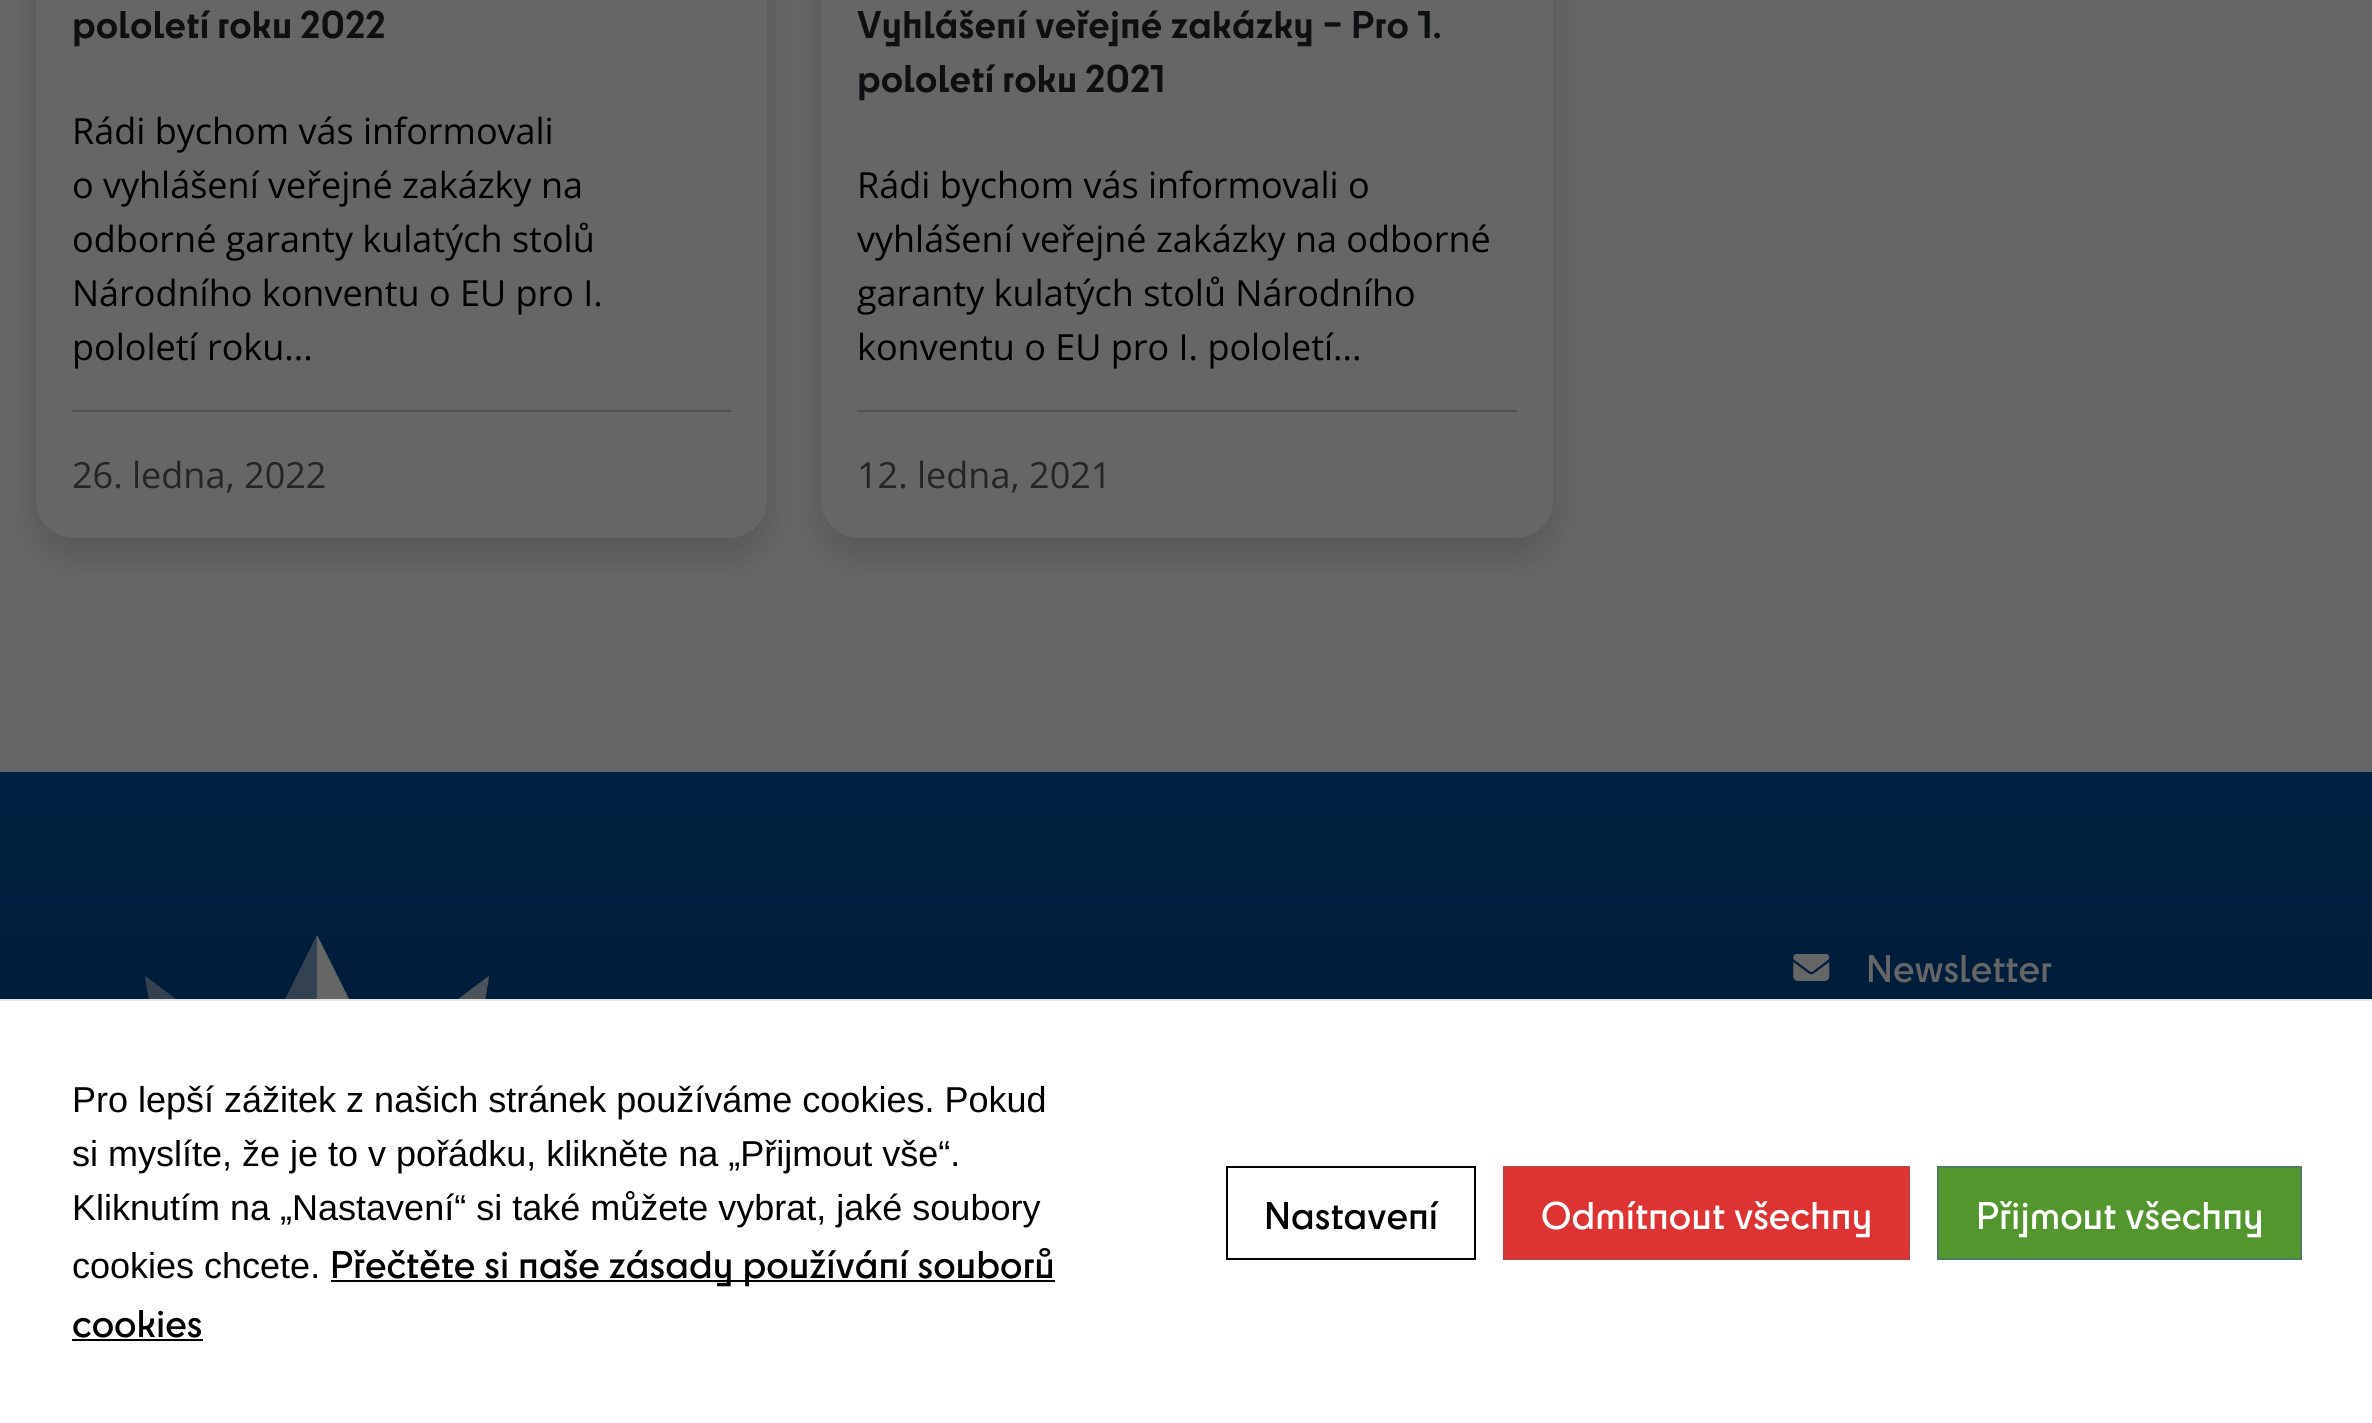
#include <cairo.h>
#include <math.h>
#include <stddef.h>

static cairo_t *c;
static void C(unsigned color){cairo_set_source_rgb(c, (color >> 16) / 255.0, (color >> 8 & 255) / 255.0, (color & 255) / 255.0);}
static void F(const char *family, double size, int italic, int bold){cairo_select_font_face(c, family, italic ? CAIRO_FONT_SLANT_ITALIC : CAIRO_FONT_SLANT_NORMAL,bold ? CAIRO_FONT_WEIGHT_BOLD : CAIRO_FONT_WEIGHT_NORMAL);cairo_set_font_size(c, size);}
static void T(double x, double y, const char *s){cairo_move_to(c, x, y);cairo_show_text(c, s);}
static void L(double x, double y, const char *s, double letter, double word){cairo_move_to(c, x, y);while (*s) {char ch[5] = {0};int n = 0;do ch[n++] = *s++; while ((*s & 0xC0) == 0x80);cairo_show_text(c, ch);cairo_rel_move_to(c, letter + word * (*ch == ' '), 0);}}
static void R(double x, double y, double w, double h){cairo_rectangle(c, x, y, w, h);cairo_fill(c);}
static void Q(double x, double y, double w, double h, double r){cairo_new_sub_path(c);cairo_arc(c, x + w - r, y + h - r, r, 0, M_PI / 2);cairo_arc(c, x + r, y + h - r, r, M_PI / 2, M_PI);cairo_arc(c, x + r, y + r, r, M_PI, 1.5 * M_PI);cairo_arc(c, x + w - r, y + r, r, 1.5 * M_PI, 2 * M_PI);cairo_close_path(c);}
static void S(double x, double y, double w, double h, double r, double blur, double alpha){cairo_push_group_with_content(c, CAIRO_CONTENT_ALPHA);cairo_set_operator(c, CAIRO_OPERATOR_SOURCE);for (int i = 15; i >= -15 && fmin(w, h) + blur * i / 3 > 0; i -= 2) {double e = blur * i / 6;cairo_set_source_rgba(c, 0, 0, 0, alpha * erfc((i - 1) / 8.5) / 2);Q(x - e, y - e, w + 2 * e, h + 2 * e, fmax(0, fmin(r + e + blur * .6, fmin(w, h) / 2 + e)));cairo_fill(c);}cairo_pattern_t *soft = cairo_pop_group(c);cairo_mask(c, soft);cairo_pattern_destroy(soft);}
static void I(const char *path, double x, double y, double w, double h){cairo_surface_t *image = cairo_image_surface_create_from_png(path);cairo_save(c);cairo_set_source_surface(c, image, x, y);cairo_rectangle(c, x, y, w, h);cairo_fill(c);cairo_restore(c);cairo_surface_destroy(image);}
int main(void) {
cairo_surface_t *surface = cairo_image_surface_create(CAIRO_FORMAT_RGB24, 2372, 1423);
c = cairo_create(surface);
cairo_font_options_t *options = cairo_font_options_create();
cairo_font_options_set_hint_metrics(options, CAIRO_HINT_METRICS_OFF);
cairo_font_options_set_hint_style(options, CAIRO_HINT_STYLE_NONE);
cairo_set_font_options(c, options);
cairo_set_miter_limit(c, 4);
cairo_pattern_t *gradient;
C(0x666666);
cairo_paint(c);
cairo_save(c);
cairo_set_fill_rule(c,CAIRO_FILL_RULE_EVEN_ODD);
cairo_new_path(c);
cairo_move_to(c,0,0);
cairo_line_to(c,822,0);
cairo_line_to(c,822,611);
cairo_line_to(c,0,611);
cairo_close_path(c);
cairo_move_to(c,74,-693);
cairo_line_to(c,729,-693);
cairo_curve_to(c,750,-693,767,-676,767,-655);
cairo_line_to(c,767,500);
cairo_curve_to(c,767,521,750,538,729,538);
cairo_line_to(c,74,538);
cairo_curve_to(c,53,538,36,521,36,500);
cairo_line_to(c,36,-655);
cairo_curve_to(c,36,-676,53,-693,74,-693);
cairo_close_path(c);
cairo_clip(c);
C(0x000000);
S(36,-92,731,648,38,18,.15);
cairo_restore(c);
F("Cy",36,0,1);
C(0x0d0f10);
L(72,38,"pololetí roku 2022",0,-1);
F("Open Sans",36,0,0);
C(0x000000);
T(72,144,"Rádi bychom vás informovali");
T(72,198,"o vyhlášení veřejné zakázky na");
T(72,252,"odborné garanty kulatých stolů");
T(72,306,"Národního konventu o EU pro I.");
T(72,360,"pololetí roku...");
C(0x505051);
R(72,410,659,2);
C(0x242526);
T(72,488,"26. ledna, 2022");
cairo_save(c);
cairo_set_fill_rule(c,CAIRO_FILL_RULE_EVEN_ODD);
cairo_new_path(c);
cairo_move_to(c,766,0);
cairo_line_to(c,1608,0);
cairo_line_to(c,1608,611);
cairo_line_to(c,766,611);
cairo_close_path(c);
cairo_move_to(c,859,-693);
cairo_line_to(c,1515,-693);
cairo_curve_to(c,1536,-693,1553,-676,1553,-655);
cairo_line_to(c,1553,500);
cairo_curve_to(c,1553,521,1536,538,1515,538);
cairo_line_to(c,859,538);
cairo_curve_to(c,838,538,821,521,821,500);
cairo_line_to(c,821,-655);
cairo_curve_to(c,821,-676,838,-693,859,-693);
cairo_close_path(c);
cairo_clip(c);
C(0x000000);
S(821,-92,732,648,38,18,.15);
cairo_restore(c);
F("Cy",36,0,1);
C(0x0d0f10);
T(857,38,"Vyhlášení veřejné zakázky – Pro 1.");
L(857,92,"pololetí roku 2021",0,-1);
F("Open Sans",36,0,0);
C(0x000000);
T(857,198,"Rádi bychom vás informovali o");
T(857,252,"vyhlášení veřejné zakázky na odborné");
T(857,306,"garanty kulatých stolů Národního");
T(857,360,"konventu o EU pro I. pololetí...");
C(0x505051);
R(857,410,660,2);
C(0x242526);
T(857,488,"12. ledna, 2021");
gradient = cairo_pattern_create_linear(1187,772,1187,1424);
cairo_pattern_add_color_stop_rgba(gradient,0,0,0.133,0.259,1);
cairo_pattern_add_color_stop_rgba(gradient,1,0,0.078,0.173,1);
cairo_set_source(c,gradient);
cairo_pattern_destroy(gradient);
R(0,772,2372,227);
I("1.png",145,935,344,64);
I("2.png",1793,954,37,27);
F("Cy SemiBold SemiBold",36,0,0);
C(0x666666);
T(1866,982,"Newsletter");
C(0xffffff);
R(0,1001,2372,422);
C(0xe6e6e6);
R(0,999,2372,2);
F("Liberation Sans",36,0,0);
C(0x000000);
T(72,1112,"Pro lepší zážitek z našich stránek používáme cookies. Pokud");
T(72,1166,"si myslíte, že je to v pořádku, klikněte na „Přijmout vše“.");
T(72,1220,"Kliknutím na „Nastavení“ si také můžete vybrat, jaké soubory");
T(72,1278,"cookies chcete.");
R(331,1280,724,2);
F("Cy SemiBold SemiBold",36,0,0);
T(330,1278,"Přečtěte si naše zásady používání souborů");
T(72,1337,"cookies");
R(72,1339,131,2);
cairo_rectangle(c,1227,1167,248,92);
cairo_stroke(c);
T(1264,1229,"Nastavení");
C(0xdd3333);
cairo_rectangle(c,1504,1167,405,92);
cairo_fill_preserve(c);
C(0xbd403c);
cairo_stroke(c);
C(0xffffff);
T(1541,1229,"Odmítnout všechny");
C(0x54962e);
cairo_rectangle(c,1938,1167,363,92);
cairo_fill_preserve(c);
C(0x4b7d5e);
cairo_stroke(c);
C(0xffffff);
T(1976,1229,"Přijmout všechny");
cairo_surface_write_to_png(surface, "o.png");
cairo_font_options_destroy(options);
cairo_destroy(c);
cairo_surface_destroy(surface);
return 0;
}
